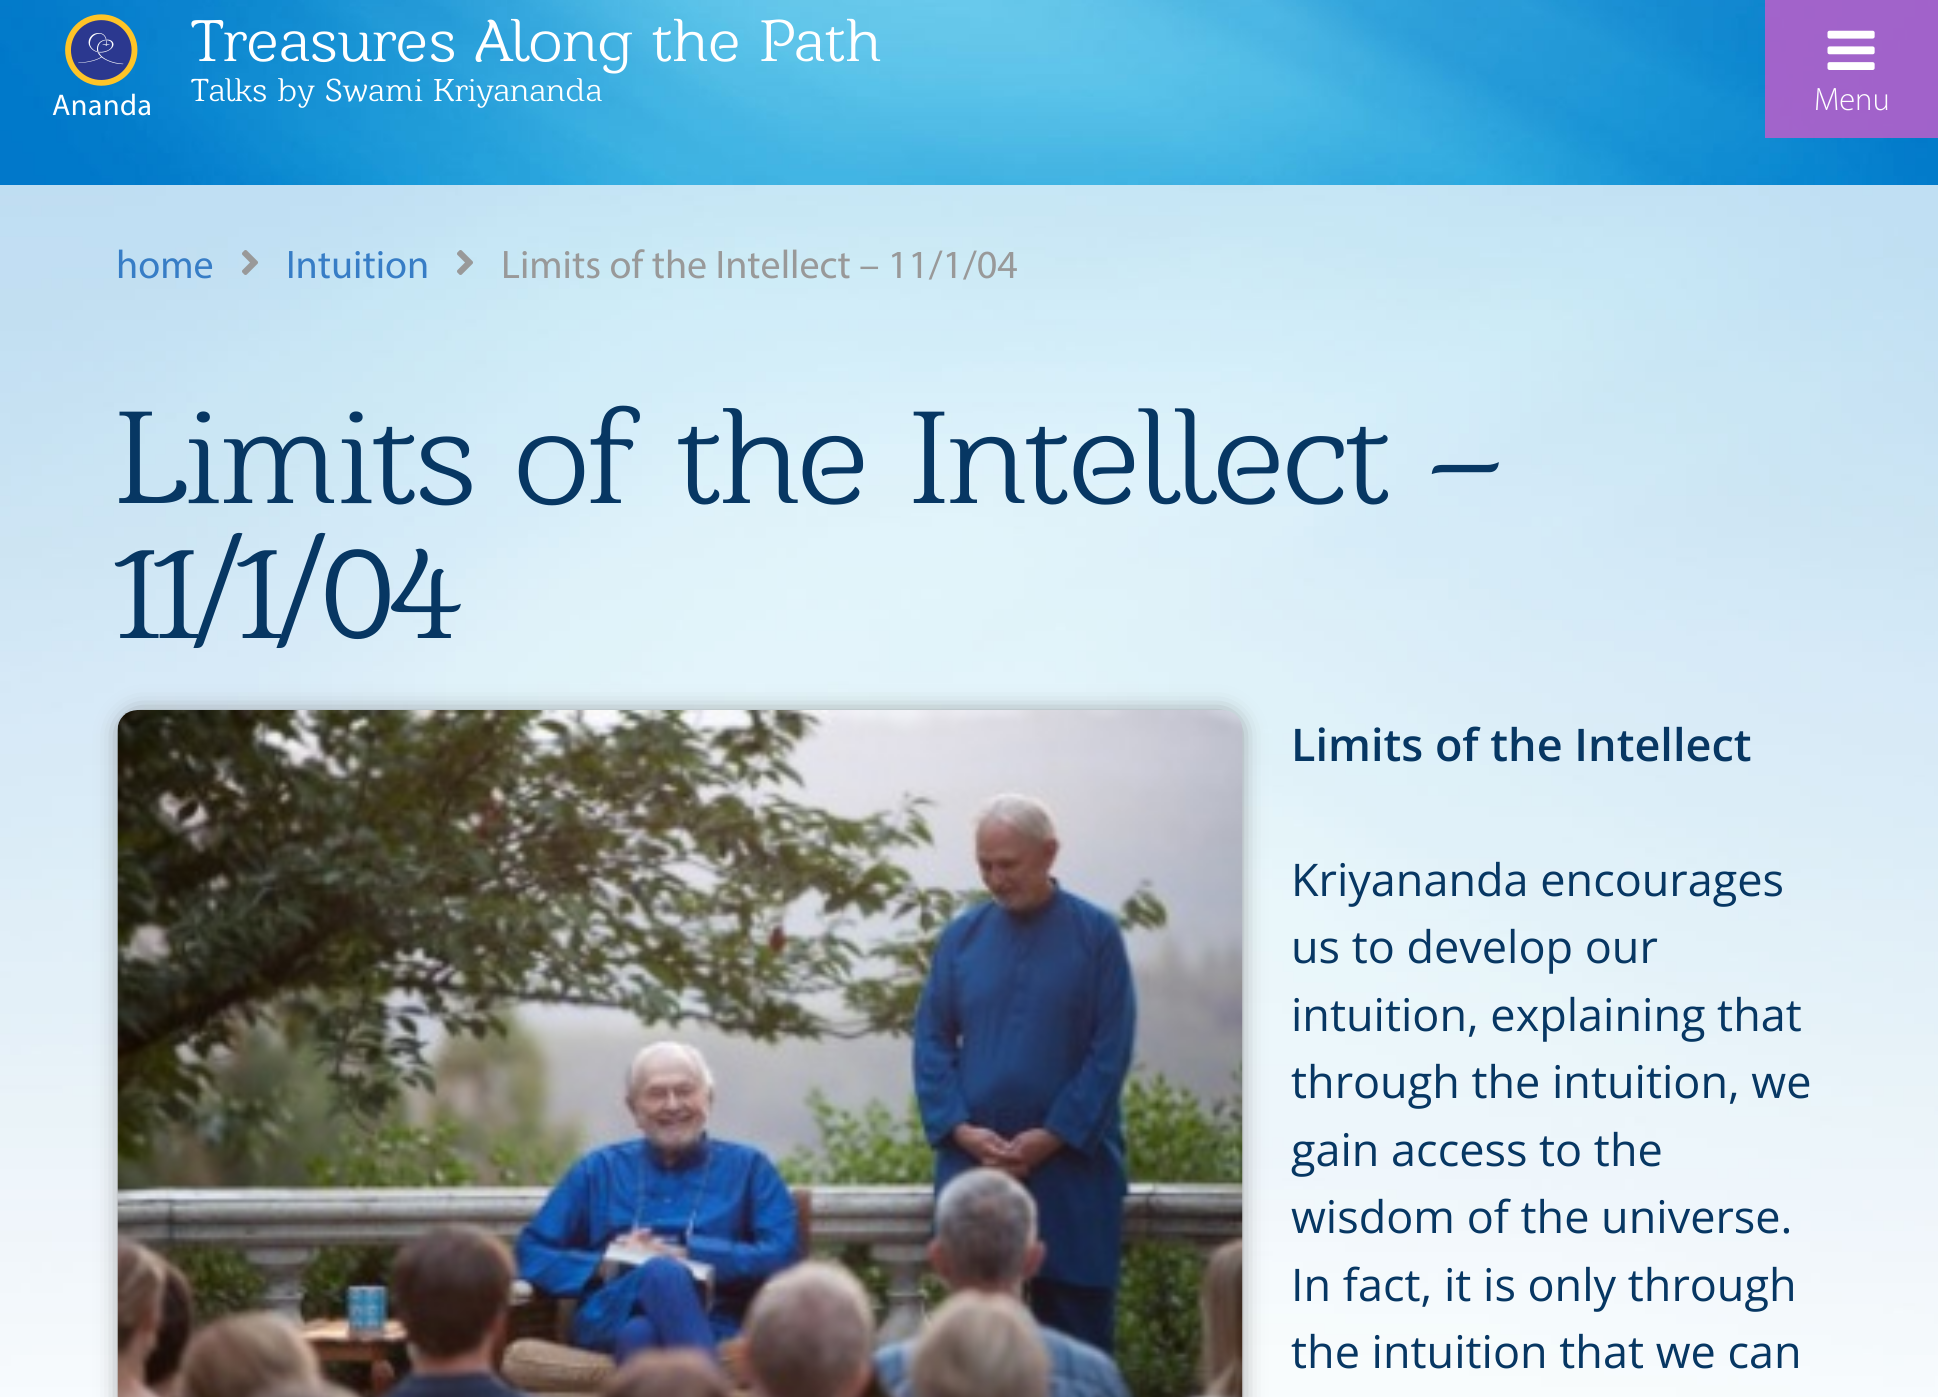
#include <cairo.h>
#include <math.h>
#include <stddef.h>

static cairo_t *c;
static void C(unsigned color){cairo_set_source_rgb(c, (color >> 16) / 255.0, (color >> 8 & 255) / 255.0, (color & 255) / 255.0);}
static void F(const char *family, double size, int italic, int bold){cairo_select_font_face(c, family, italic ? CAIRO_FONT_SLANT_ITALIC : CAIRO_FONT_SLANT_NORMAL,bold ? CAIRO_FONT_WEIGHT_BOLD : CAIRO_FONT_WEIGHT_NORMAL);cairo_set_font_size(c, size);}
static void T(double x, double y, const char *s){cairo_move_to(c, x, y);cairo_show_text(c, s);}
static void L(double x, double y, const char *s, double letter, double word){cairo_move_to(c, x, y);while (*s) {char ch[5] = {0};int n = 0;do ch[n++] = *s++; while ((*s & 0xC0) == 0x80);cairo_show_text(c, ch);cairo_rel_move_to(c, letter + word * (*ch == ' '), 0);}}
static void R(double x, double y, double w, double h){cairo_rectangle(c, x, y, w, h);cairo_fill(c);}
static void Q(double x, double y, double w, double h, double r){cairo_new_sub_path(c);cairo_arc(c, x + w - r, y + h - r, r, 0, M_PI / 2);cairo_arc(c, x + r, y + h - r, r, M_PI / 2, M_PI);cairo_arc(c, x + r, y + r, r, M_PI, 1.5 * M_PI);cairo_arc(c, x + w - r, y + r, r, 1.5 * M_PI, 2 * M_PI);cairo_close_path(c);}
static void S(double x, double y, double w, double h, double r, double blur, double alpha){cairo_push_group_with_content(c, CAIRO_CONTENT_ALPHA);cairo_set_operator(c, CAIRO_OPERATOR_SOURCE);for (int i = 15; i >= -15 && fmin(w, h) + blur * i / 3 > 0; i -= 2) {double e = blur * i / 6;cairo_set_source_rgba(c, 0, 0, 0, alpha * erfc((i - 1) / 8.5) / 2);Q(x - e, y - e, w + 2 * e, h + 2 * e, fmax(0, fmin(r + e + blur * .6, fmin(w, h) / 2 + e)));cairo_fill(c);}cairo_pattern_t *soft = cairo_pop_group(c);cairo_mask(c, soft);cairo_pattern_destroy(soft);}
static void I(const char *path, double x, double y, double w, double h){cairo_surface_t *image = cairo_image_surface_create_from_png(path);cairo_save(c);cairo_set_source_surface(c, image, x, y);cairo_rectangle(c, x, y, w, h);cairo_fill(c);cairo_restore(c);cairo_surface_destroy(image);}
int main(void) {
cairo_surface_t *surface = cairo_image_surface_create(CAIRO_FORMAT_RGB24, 1938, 1397);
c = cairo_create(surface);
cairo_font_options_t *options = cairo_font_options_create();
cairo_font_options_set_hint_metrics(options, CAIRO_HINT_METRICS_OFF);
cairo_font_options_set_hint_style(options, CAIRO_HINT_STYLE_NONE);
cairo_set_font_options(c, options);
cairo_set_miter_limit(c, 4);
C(0xffffff);
cairo_paint(c);
I("1.png",0,0,1938,185);
I("2.png",65,14,73,72);
F("Myriad",30,0,0);
C(0xffffff);
L(52,115,"Ananda",.5,0);
F("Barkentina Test",60,0,0);
T(191,61,"Treasures Along the Path");
F("Barkentina Test",32.5,0,0);
T(191,101,"Talks by Swami Kriyananda");
cairo_set_source_rgba(c,0.729,0.369,0.792,0.86);
R(1765,0,173,138);
I("3.png",1827,30,48,40);
F("Myriad Light",32.5,0,0);
C(0xffffff);
T(1814,110,"Menu");
I("4.png",0,185,1938,1212);
F("Myriad",40,0,0);
C(0x377dc6);
T(116,278,"home");
I("5.png",242,250,16,25);
T(286,278,"Intuition");
I("6.png",457,250,16,25);
C(0x999999);
T(501,278,"Limits of the Intellect – 11/1/04");
F("Barkentina Test",135,0,0);
C(0x073763);
L(116,503,"Limits of the Intellect –",-3,0);
L(116,638,"11/1/04",-3,0);
C(0x808080);
S(123,715,1115,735,15,12.5,1);
I("7.png",117,710,1126,687);
F("Open Sans SemiBold",45,0,0);
C(0x073763);
T(1291,761,"Limits of the Intellect");
F("Open Sans",45,0,0);
T(1291,896,"Kriyananda encourages");
T(1291,963,"us to develop our");
T(1291,1031,"intuition, explaining that");
T(1291,1098,"through the intuition, we");
T(1291,1166,"gain access to the");
T(1291,1233,"wisdom of the universe.");
T(1291,1301,"In fact, it is only through");
T(1291,1368,"the intuition that we can");
cairo_surface_write_to_png(surface, "o.png");
cairo_font_options_destroy(options);
cairo_destroy(c);
cairo_surface_destroy(surface);
return 0;
}
